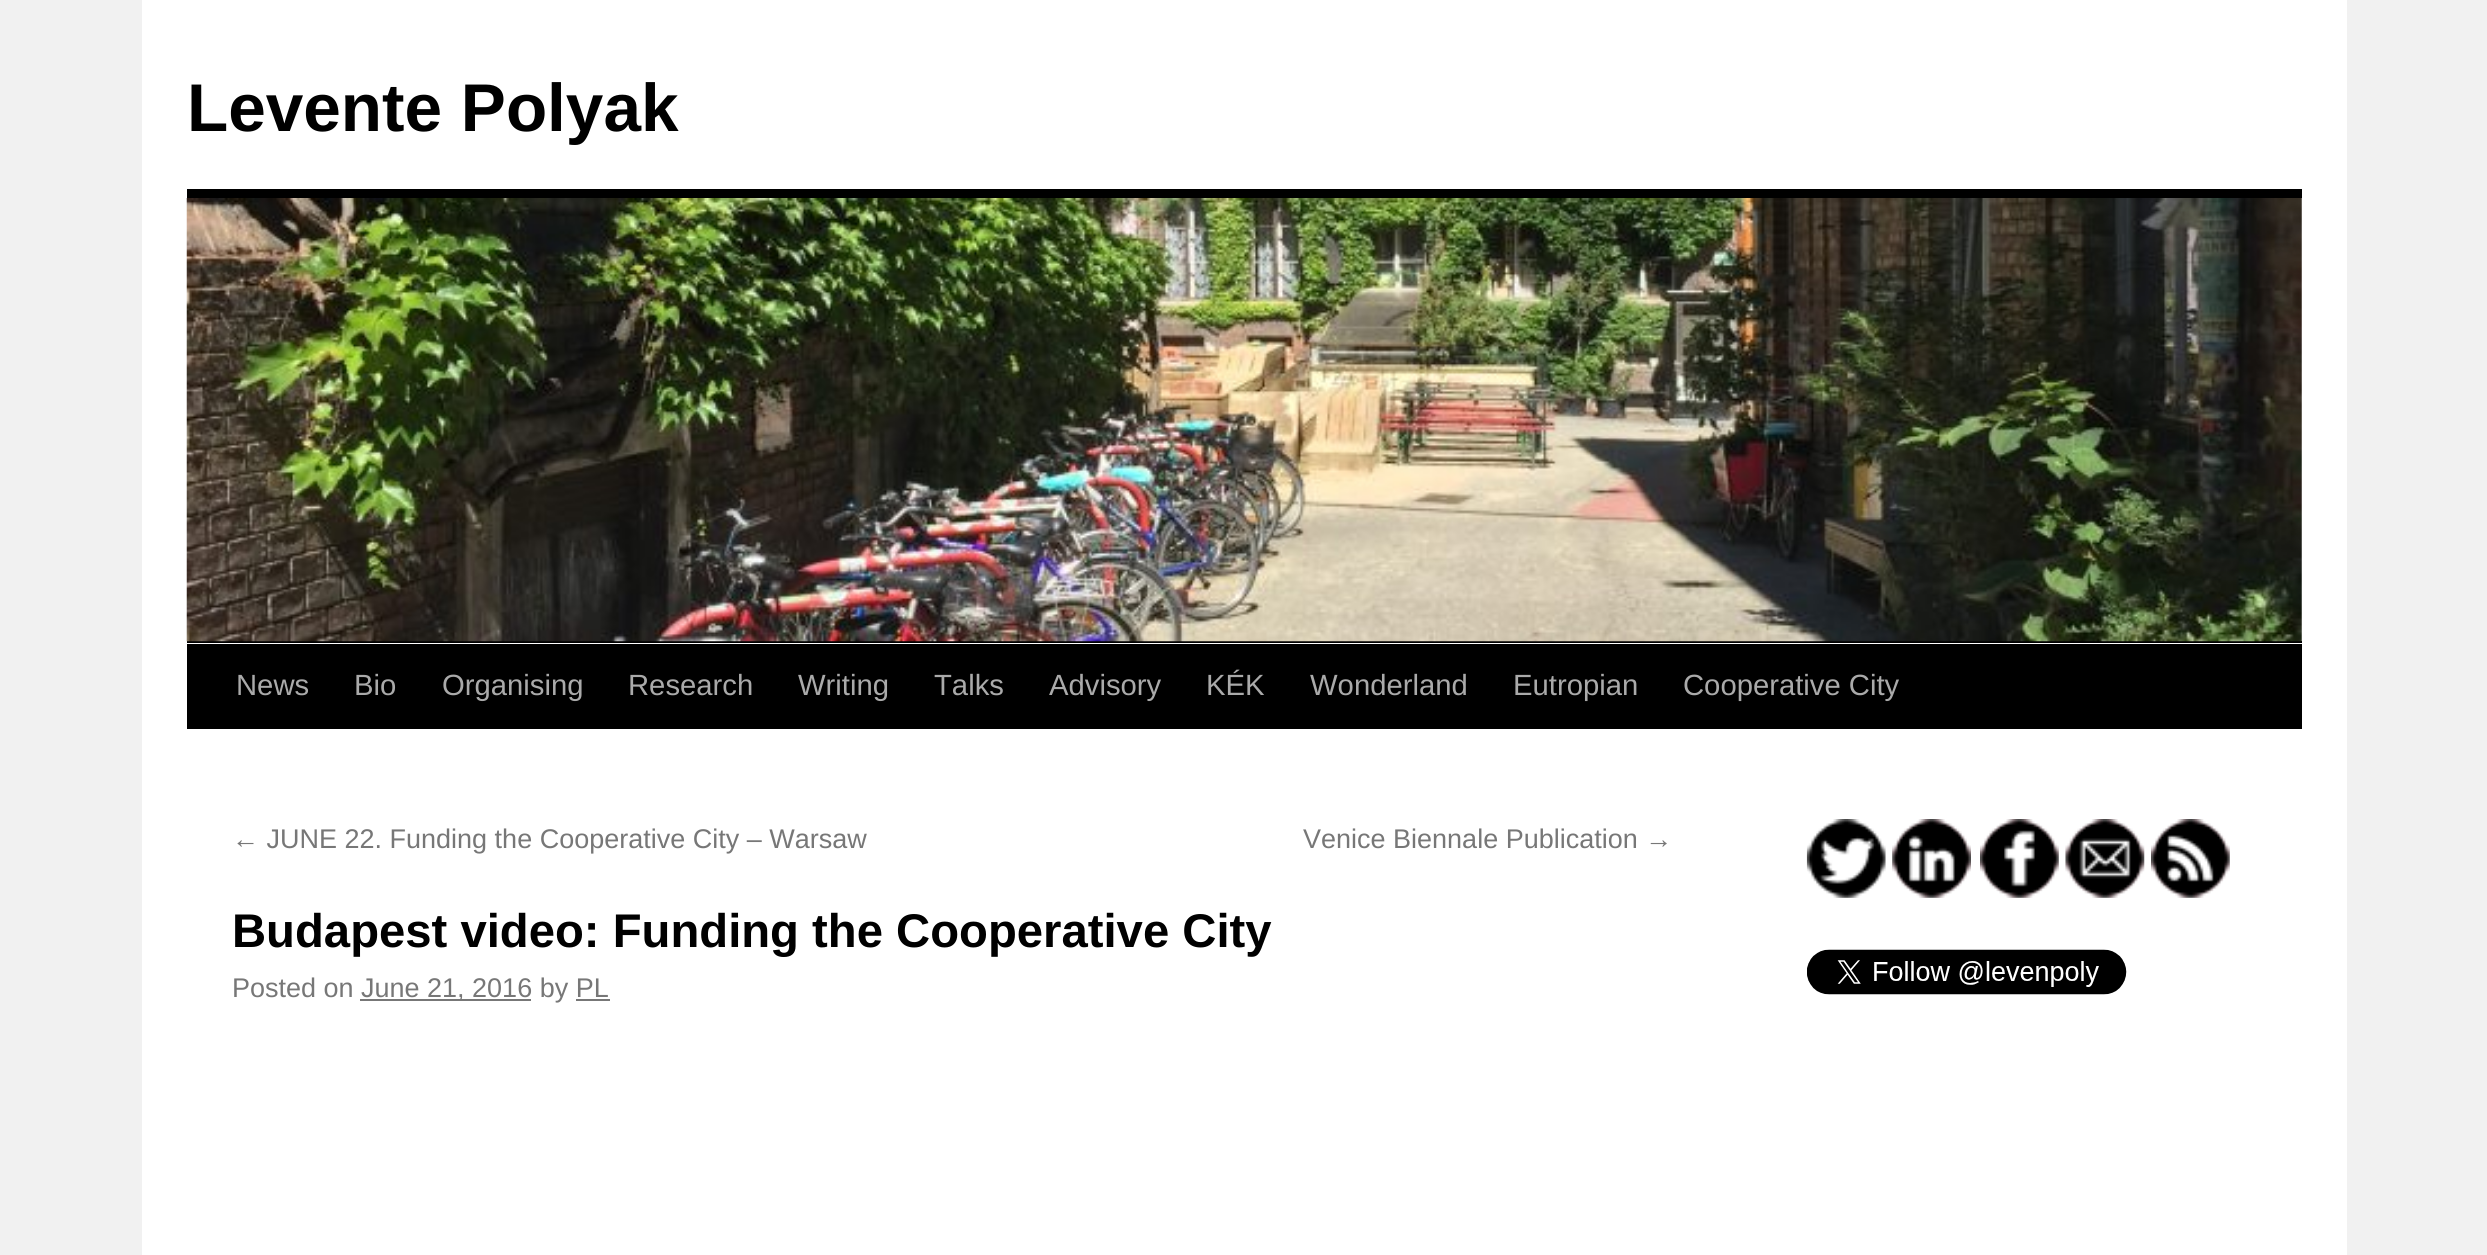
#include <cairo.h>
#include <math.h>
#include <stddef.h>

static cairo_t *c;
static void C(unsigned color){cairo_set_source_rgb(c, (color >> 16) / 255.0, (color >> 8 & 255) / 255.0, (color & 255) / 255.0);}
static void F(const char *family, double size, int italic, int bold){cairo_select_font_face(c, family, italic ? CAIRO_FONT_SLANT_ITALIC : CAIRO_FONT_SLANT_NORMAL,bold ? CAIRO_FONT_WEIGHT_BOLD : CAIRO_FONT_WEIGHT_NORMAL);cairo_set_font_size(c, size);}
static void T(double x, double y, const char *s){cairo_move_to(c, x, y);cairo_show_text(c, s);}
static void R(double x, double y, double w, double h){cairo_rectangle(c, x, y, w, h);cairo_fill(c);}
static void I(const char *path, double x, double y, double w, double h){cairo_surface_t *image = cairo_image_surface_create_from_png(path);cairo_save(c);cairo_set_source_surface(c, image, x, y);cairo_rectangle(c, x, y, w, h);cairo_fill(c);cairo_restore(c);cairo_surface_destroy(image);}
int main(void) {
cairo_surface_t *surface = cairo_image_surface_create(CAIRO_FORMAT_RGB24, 2487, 1255);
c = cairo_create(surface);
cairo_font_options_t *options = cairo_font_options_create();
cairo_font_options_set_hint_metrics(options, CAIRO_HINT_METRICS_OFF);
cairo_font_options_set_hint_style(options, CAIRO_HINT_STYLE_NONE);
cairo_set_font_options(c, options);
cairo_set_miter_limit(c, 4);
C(0xf1f1f1);
cairo_paint(c);
C(0xffffff);
R(142,0,2205,1255);
F("Liberation Sans",67.5,0,1);
C(0x000000);
T(187,131,"Levente Polyak");
R(187,189,2115,9);
R(187,641,2115,2);
I("1.png",186,198,2116,444);
R(187,644,2115,85);
F("Liberation Sans",29.25,0,0);
C(0xaaaaaa);
T(236,695,"News");
T(354,695,"Bio");
T(442,695,"Organising");
T(628,695,"Research");
T(798,695,"Writing");
T(934,695,"Talks");
T(1049,695,"Advisory");
T(1206,695,"KÉK");
T(1310,695,"Wonderland");
T(1513,695,"Eutropian");
T(1683,695,"Cooperative City");
F("Liberation Sans",27,0,0);
C(0x777777);
T(232,848,"← JUNE 22. Funding the Cooperative City – Warsaw");
T(1303,848,"Venice Biennale Publication →");
F("Liberation Sans",47.25,0,1);
C(0x000000);
T(232,947,"Budapest video: Funding the Cooperative City");
F("Liberation Sans",27,0,0);
C(0x777777);
T(232,997,"Posted on");
R(360,999,171,2);
T(361,997,"June 21, 2016 by PL");
R(576,999,34,2);
I("2.png",1806,819,80,79);
I("3.png",1892,819,79,79);
I("4.png",1980,819,79,79);
I("5.png",2065,819,80,79);
I("6.png",2151,819,79,79);
I("7.png",1807,949,320,46);
cairo_surface_write_to_png(surface, "o.png");
cairo_font_options_destroy(options);
cairo_destroy(c);
cairo_surface_destroy(surface);
return 0;
}
